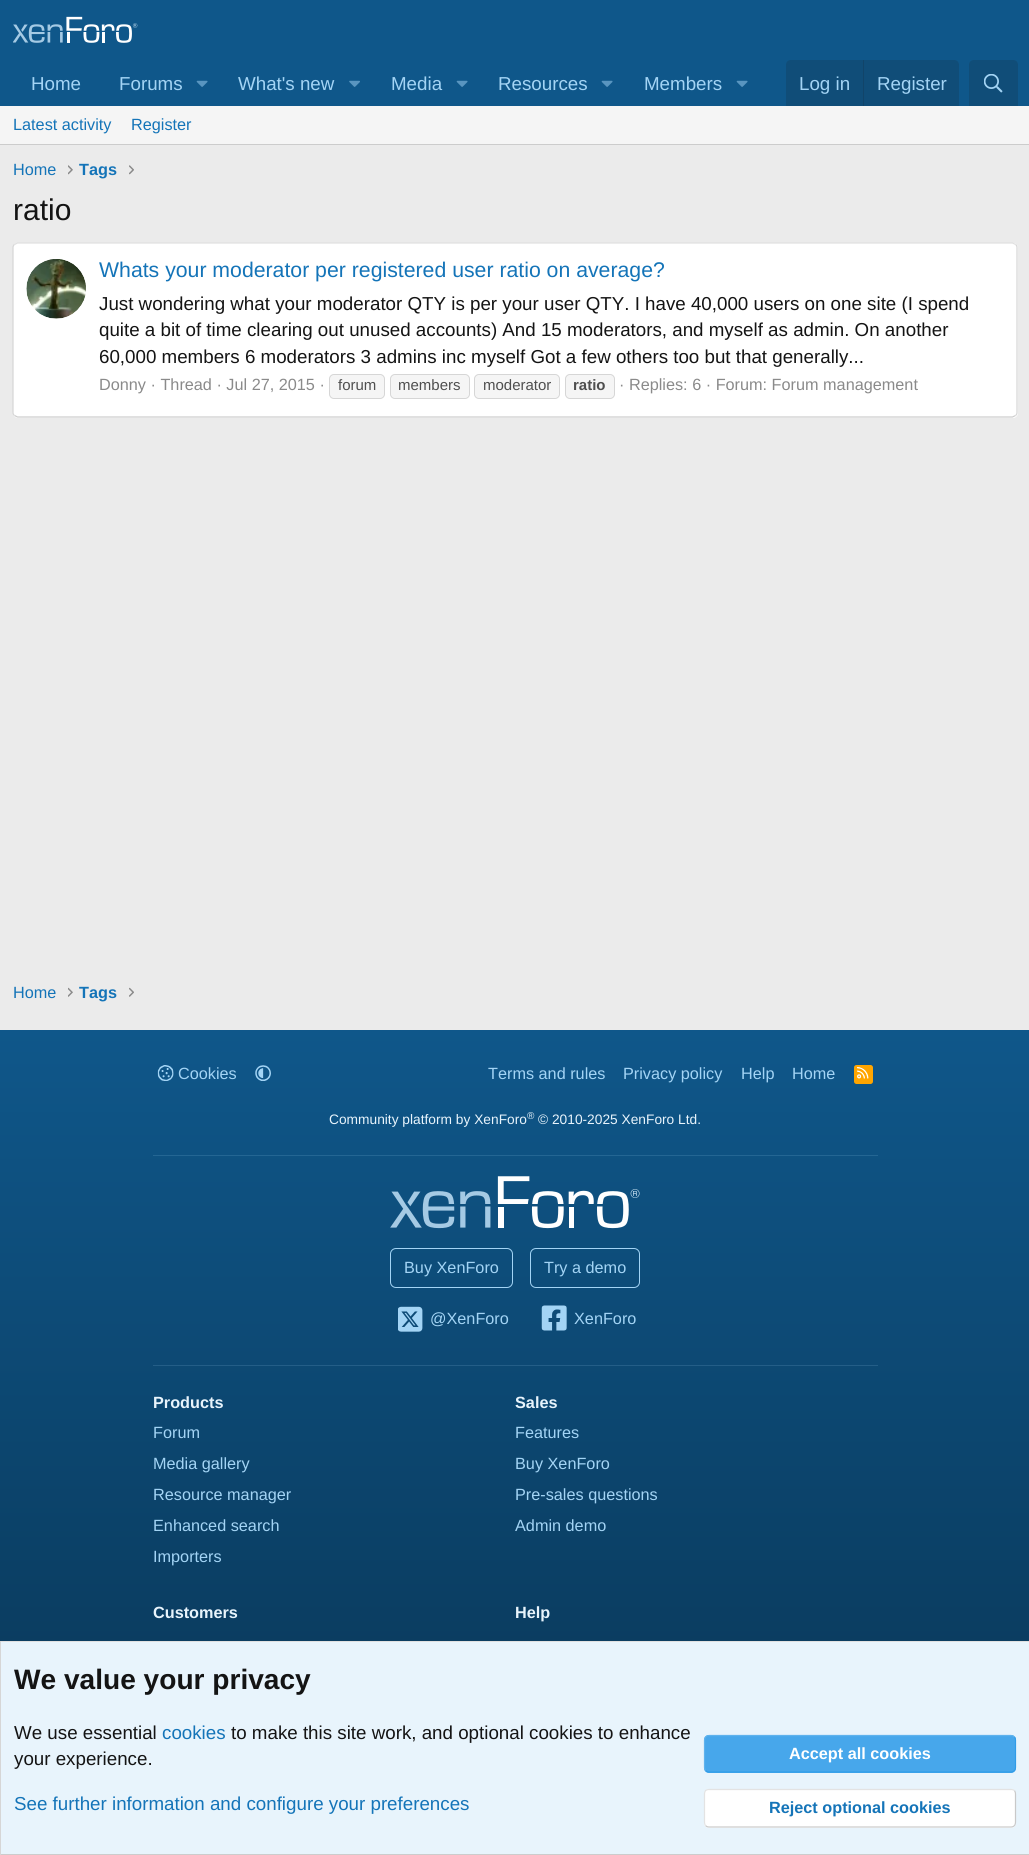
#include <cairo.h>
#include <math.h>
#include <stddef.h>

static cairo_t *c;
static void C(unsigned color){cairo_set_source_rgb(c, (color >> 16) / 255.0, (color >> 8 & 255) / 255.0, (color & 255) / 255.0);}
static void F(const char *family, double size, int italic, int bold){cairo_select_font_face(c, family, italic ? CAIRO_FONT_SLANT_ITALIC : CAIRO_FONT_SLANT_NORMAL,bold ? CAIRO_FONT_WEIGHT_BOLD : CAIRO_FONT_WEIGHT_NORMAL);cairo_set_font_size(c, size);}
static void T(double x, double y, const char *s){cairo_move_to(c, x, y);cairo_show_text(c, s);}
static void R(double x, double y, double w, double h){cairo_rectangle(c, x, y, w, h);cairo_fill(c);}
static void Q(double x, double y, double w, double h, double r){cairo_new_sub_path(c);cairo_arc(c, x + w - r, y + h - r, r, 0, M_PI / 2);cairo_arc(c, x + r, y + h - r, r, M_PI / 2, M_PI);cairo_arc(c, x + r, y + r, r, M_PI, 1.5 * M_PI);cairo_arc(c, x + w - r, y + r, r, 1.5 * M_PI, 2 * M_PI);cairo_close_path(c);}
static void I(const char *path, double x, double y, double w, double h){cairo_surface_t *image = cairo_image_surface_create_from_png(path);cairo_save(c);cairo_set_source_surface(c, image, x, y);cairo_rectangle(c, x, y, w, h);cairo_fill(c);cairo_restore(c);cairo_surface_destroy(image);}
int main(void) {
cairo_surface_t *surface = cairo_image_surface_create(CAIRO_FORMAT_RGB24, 1029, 1855);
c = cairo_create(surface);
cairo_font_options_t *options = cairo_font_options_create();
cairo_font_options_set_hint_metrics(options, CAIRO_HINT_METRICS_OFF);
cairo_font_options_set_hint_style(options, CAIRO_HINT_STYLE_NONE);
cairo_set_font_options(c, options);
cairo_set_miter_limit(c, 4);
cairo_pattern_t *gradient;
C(0xebebeb);
cairo_paint(c);
C(0x0f578a);
R(0,0,1029,106);
I("1.png",13,16,125,27);
F("Liberation Sans",18.75,0,0);
C(0xa3d4f5);
T(31,90,"Home");
T(119,90,"Forums");
I("2.png",196,80,12,7);
T(238,90,"What's new");
I("3.png",349,80,11,7);
T(391,90,"Media");
I("2.png",456,80,12,7);
T(498,90,"Resources");
I("2.png",601,80,12,7);
T(644,90,"Members");
I("2.png",736,80,12,7);
C(0x104d78);
cairo_new_path(c);
cairo_move_to(c,791,60);
cairo_line_to(c,954,60);
cairo_curve_to(c,957,60,959,62,959,65);
cairo_line_to(c,959,106);
cairo_line_to(c,786,106);
cairo_line_to(c,786,65);
cairo_curve_to(c,786,62,788,60,791,60);
cairo_close_path(c);
cairo_fill(c);
C(0xa3d4f5);
T(799,90,"Log in");
C(0x114469);
R(863,60,1,46);
C(0xa3d4f5);
T(877,90,"Register");
C(0x104d78);
cairo_new_path(c);
cairo_move_to(c,974,60);
cairo_line_to(c,1013,60);
cairo_curve_to(c,1016,60,1018,62,1018,65);
cairo_line_to(c,1018,106);
cairo_line_to(c,969,106);
cairo_line_to(c,969,65);
cairo_curve_to(c,969,62,971,60,974,60);
cairo_close_path(c);
cairo_fill(c);
I("4.png",984,74,19,19);
C(0xf5f5f5);
R(0,106,1029,38);
C(0xcccccc);
R(0,144,1029,1);
F("Liberation Sans",16.25,0,0);
C(0x1474b8);
T(13,130,"Latest activity");
T(131,130,"Register");
T(13,175,"Home");
I("5.png",68,165,5,10);
F("Liberation Sans",16.25,0,1);
T(79,175,"Tags");
I("6.png",129,165,5,10);
F("Liberation Sans",30,0,0);
C(0x141414);
T(13,220,"ratio");
C(0xffffff);
Q(13,243,1005,175,5);
cairo_fill(c);
cairo_new_path(c);
cairo_move_to(c,14.5,244.5);
cairo_line_to(c,17.5,243);
cairo_line_to(c,1012.5,243);
cairo_line_to(c,1015.5,244.5);
C(0xe0e0e0);
cairo_set_line_width(c,1.2);
cairo_stroke(c);
cairo_new_path(c);
cairo_move_to(c,1015.5,244.5);
cairo_curve_to(c,1016.5,245,1017,246.5,1017,247.5);
cairo_line_to(c,1017,412.5);
cairo_curve_to(c,1017,413.5,1016.5,415,1015.5,415.5);
C(0xd6d6d6);
cairo_stroke(c);
cairo_new_path(c);
cairo_move_to(c,1015.5,415.5);
cairo_line_to(c,1012.5,417);
cairo_line_to(c,17.5,417);
cairo_line_to(c,14.5,415.5);
C(0xcccccc);
cairo_stroke(c);
cairo_new_path(c);
cairo_move_to(c,14.5,415.5);
cairo_curve_to(c,13.5,415,13,413.5,13,412.5);
cairo_line_to(c,13,247.5);
cairo_curve_to(c,13,246.5,13.5,245,14.5,244.5);
C(0xd6d6d6);
cairo_stroke(c);
I("7.png",26,259,60,60);
F("Liberation Sans",21.25,0,0);
C(0x1474b8);
T(99,277,"Whats your moderator per registered user ratio on average?");
F("Liberation Sans",18.75,0,0);
C(0x141414);
T(99,310,"Just wondering what your moderator QTY is per your user QTY. I have 40,000 users on one site (I spend");
T(99,336,"quite a bit of time clearing out unused accounts) And 15 moderators, and myself as admin. On another");
T(99,363,"60,000 members 6 moderators 3 admins inc myself Got a few others too but that generally...");
F("Liberation Sans",16.25,0,0);
C(0x8a8a8a);
T(99,390,"Donny · Thread · Jul 27, 2015 ·");
C(0xf5f5f5);
Q(329.5,374.5,55,24,4.5);
cairo_fill_preserve(c);
C(0xd6d6d6);
cairo_set_line_width(c,1);
cairo_stroke(c);
F("Liberation Sans",15,0,0);
C(0x4f4f4f);
T(338,390,"forum");
C(0xf5f5f5);
Q(390.5,374.5,79,24,4.5);
cairo_fill_preserve(c);
C(0xd6d6d6);
cairo_stroke(c);
C(0x4f4f4f);
T(398,390,"members");
C(0xf5f5f5);
Q(474.5,374.5,85,24,4.5);
cairo_fill_preserve(c);
C(0xd6d6d6);
cairo_stroke(c);
C(0x4f4f4f);
T(483,390,"moderator");
C(0xf5f5f5);
Q(565.5,374.5,49,24,4.5);
cairo_fill_preserve(c);
C(0xd6d6d6);
cairo_stroke(c);
F("Liberation Sans",15,0,1);
C(0x4f4f4f);
T(573,390,"ratio");
F("Liberation Sans",16.25,0,0);
C(0x8a8a8a);
T(619,390,"· Replies: 6 · Forum: Forum management");
C(0x1474b8);
T(13,998,"Home");
I("8.png",68,987,5,10);
F("Liberation Sans",16.25,0,1);
T(79,998,"Tags");
I("9.png",129,987,5,10);
gradient = cairo_pattern_create_linear(515,1855,515,1030);
cairo_pattern_add_color_stop_rgba(gradient,0,0.035,0.204,0.325,1);
cairo_pattern_add_color_stop_rgba(gradient,1,0.059,0.341,0.541,1);
cairo_set_source(c,gradient);
cairo_pattern_destroy(gradient);
R(0,1030,1029,611);
I("10.png",157,1065,17,16);
F("Liberation Sans",16.25,0,0);
C(0xa3d4f5);
T(178,1079,"Cookies");
I("11.png",255,1065,16,16);
T(488,1079,"Terms and rules");
T(623,1079,"Privacy policy");
T(741,1079,"Help");
T(792,1079,"Home");
C(0xffa500);
Q(854,1065,19,19,2.5);
cairo_fill(c);
I("12.png",857,1067,12,12);
C(0x246693);
R(153,1155,725,1);
F("Liberation Sans",13.75,0,0);
C(0xe8f4fc);
T(329,1124,"Community platform by XenForo");
F("Liberation Sans",10,0,0);
T(527,1119,"®");
F("Liberation Sans",13.75,0,0);
T(538,1124,"© 2010-2025 XenForo Ltd.");
C(0x245e87);
R(153,1365,725,1);
I("13.png",390,1176,250,53);
Q(390.5,1248.5,122,39,5.5);
C(0xa3d4f5);
cairo_stroke(c);
F("Liberation Sans",16.25,0,0);
T(404,1273,"Buy XenForo");
Q(530.5,1248.5,109,39,5.5);
cairo_stroke(c);
T(544,1273,"Try a demo");
I("14.png",398,1306,25,26);
T(430,1324,"@XenForo");
I("15.png",541,1305,26,26);
T(574,1324,"XenForo");
F("Liberation Sans",16.25,0,1);
C(0xe8f4fc);
T(153,1408,"Products");
F("Liberation Sans",16.25,0,0);
C(0xa3d4f5);
T(153,1438,"Forum");
T(153,1469,"Media gallery");
T(153,1500,"Resource manager");
T(153,1531,"Enhanced search");
T(153,1562,"Importers");
F("Liberation Sans",16.25,0,1);
C(0xe8f4fc);
T(515,1408,"Sales");
F("Liberation Sans",16.25,0,0);
C(0xa3d4f5);
T(515,1438,"Features");
T(515,1469,"Buy XenForo");
T(515,1500,"Pre-sales questions");
T(515,1531,"Admin demo");
F("Liberation Sans",16.25,0,1);
C(0xe8f4fc);
T(153,1618,"Customers");
T(515,1618,"Help");
R(1,1642,1028,212);
C(0xe0e0e0);
R(0,1641,1029,1);
C(0xcccccc);
R(0,1854,1029,1);
C(0xd6d6d6);
R(0,1641,1,214);
F("Liberation Sans",28.1,0,1);
C(0x141414);
T(14,1689,"We value your privacy");
F("Liberation Sans",18.75,0,0);
T(14,1739,"We use essential");
C(0x1474b8);
T(162,1739,"cookies");
C(0x141414);
T(231,1739,"to make this site work, and optional cookies to enhance");
T(14,1765,"your experience.");
C(0x1474b8);
T(14,1810,"See further information and configure your preferences");
C(0x47a7eb);
Q(704,1735,312,38,5);
cairo_fill(c);
cairo_new_path(c);
cairo_move_to(c,1014.5,1737);
cairo_curve_to(c,1015,1737.5,1015.5,1739,1015.5,1740);
cairo_line_to(c,1015.5,1767.5);
cairo_curve_to(c,1015.5,1768.5,1015,1770,1014.5,1770.5);
cairo_curve_to(c,1013.5,1771.5,1012.5,1772,1011,1772);
cairo_line_to(c,709,1772);
cairo_curve_to(c,707.5,1772,706.5,1771.5,705.5,1770.5);
C(0x309ce8);
cairo_set_line_width(c,1.2);
cairo_stroke(c);
cairo_new_path(c);
cairo_move_to(c,705.5,1770.5);
cairo_curve_to(c,705,1770,704.5,1768.5,704.5,1767.5);
cairo_line_to(c,704.5,1740);
cairo_curve_to(c,704.5,1739,705,1737.5,705.5,1737);
cairo_curve_to(c,706.5,1736,707.5,1735.5,709,1735.5);
cairo_line_to(c,1011,1735.5);
cairo_curve_to(c,1012.5,1735.5,1013.5,1736,1014.5,1737);
C(0x5eb2ed);
cairo_stroke(c);
F("Liberation Sans",16.25,0,1);
C(0xffffff);
T(789,1759,"Accept all cookies");
Q(704,1789,312,39,5);
cairo_fill(c);
cairo_new_path(c);
cairo_move_to(c,1014.5,1790.5);
cairo_curve_to(c,1015,1791.5,1015.5,1792.5,1015.5,1794);
cairo_line_to(c,1015.5,1822.5);
cairo_curve_to(c,1015.5,1823.5,1015,1825,1014.5,1825.5);
cairo_curve_to(c,1013.5,1826.5,1012.5,1827,1011,1827);
cairo_line_to(c,709,1827);
cairo_curve_to(c,707.5,1827,706.5,1826.5,705.5,1825.5);
C(0xc9c9c9);
cairo_stroke(c);
cairo_new_path(c);
cairo_move_to(c,705.5,1825.5);
cairo_curve_to(c,705,1825,704.5,1823.5,704.5,1822.5);
cairo_line_to(c,704.5,1794);
cairo_curve_to(c,704.5,1792.5,705,1791.5,705.5,1790.5);
cairo_curve_to(c,706.5,1790,707.5,1789.5,709,1789.5);
cairo_line_to(c,1011,1789.5);
cairo_curve_to(c,1012.5,1789.5,1013.5,1790,1014.5,1790.5);
C(0xe3e3e3);
cairo_stroke(c);
C(0x1474b8);
T(769,1813,"Reject optional cookies");
cairo_surface_write_to_png(surface, "o.png");
cairo_font_options_destroy(options);
cairo_destroy(c);
cairo_surface_destroy(surface);
return 0;
}
